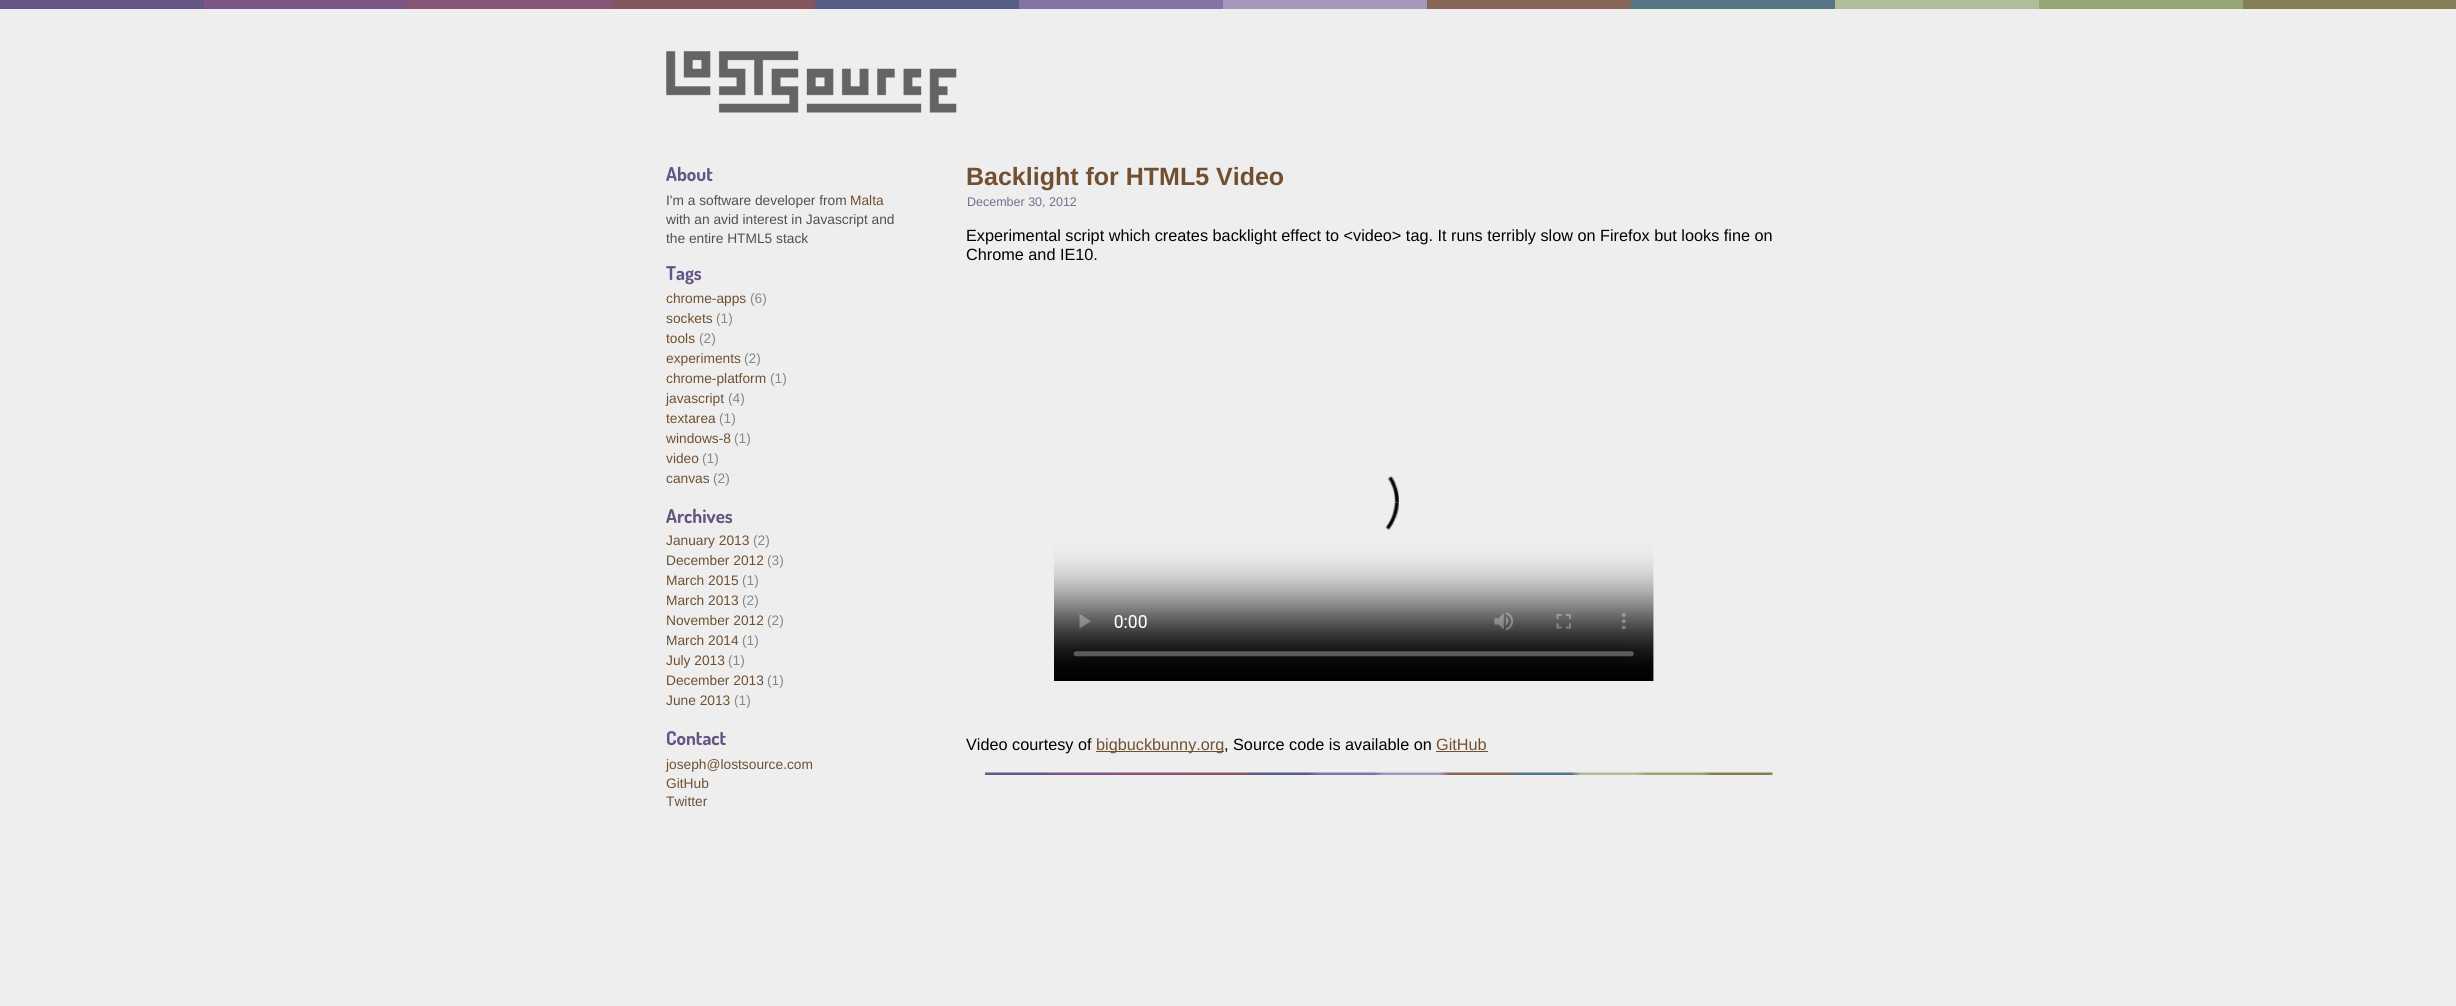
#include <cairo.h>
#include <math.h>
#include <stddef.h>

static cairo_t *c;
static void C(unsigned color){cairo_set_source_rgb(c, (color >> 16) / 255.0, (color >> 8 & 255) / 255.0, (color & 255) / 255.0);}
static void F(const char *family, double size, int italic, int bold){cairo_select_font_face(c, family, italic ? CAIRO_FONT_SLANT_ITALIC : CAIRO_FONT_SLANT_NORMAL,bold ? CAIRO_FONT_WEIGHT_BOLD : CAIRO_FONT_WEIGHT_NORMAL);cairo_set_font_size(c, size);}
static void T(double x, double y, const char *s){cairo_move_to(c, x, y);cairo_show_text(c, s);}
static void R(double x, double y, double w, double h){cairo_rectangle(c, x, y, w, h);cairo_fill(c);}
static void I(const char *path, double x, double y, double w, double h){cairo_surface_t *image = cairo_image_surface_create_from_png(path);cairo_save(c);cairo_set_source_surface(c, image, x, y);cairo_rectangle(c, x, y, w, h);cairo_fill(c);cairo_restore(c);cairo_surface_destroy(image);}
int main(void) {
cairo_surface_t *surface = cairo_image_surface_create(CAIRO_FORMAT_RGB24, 2456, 1006);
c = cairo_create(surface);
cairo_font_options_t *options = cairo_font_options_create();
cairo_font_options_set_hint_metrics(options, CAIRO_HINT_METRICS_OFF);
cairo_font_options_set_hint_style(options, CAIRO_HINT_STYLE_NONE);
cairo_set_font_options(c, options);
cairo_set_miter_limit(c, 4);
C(0xeeeeee);
cairo_paint(c);
C(0x665686);
R(0,0,204,9);
C(0x7e5686);
R(204,0,204,9);
C(0x865676);
R(408,0,204,9);
C(0x86565e);
R(612,0,203,9);
C(0x565e86);
R(815,0,204,9);
C(0x8473a5);
R(1019,0,204,9);
C(0xa598bd);
R(1223,0,204,9);
C(0x866656);
R(1427,0,204,9);
C(0x567686);
R(1631,0,204,9);
C(0xb1bd98);
R(1835,0,204,9);
C(0x95a573);
R(2039,0,204,9);
C(0x867e56);
R(2243,0,213,9);
I("1.png",666,51,291,62);
F("Dosis",19,0,1);
C(0x655585);
T(666,181,"About");
F("Liberation Sans",13.75,0,0);
C(0x505050);
T(666,205,"I'm a software developer from");
C(0x705030);
T(850,205,"Malta");
C(0x505050);
T(666,224,"with an avid interest in Javascript and");
T(666,243,"the entire HTML5 stack");
F("Dosis",19,0,1);
C(0x655585);
T(666,280,"Tags");
F("Liberation Sans",13.75,0,0);
C(0x705030);
T(666,303,"chrome-apps");
C(0x888888);
T(750,303,"(6)");
C(0x705030);
T(666,323,"sockets");
C(0x888888);
T(716,323,"(1)");
C(0x705030);
T(666,343,"tools");
C(0x888888);
T(699,343,"(2)");
C(0x705030);
T(666,363,"experiments");
C(0x888888);
T(744,363,"(2)");
C(0x705030);
T(666,383,"chrome-platform");
C(0x888888);
T(770,383,"(1)");
C(0x705030);
T(666,403,"javascript");
C(0x888888);
T(728,403,"(4)");
C(0x705030);
T(666,423,"textarea");
C(0x888888);
T(719,423,"(1)");
C(0x705030);
T(666,443,"windows-8");
C(0x888888);
T(734,443,"(1)");
C(0x705030);
T(666,463,"video");
C(0x888888);
T(702,463,"(1)");
C(0x705030);
T(666,483,"canvas");
C(0x888888);
T(713,483,"(2)");
F("Dosis",19,0,1);
C(0x655585);
T(666,523,"Archives");
F("Liberation Sans",13.75,0,0);
C(0x705030);
T(666,545,"January 2013");
C(0x888888);
T(753,545,"(2)");
C(0x705030);
T(666,565,"December 2012");
C(0x888888);
T(767,565,"(3)");
C(0x705030);
T(666,585,"March 2015");
C(0x888888);
T(742,585,"(1)");
C(0x705030);
T(666,605,"March 2013");
C(0x888888);
T(742,605,"(2)");
C(0x705030);
T(666,625,"November 2012");
C(0x888888);
T(767,625,"(2)");
C(0x705030);
T(666,645,"March 2014");
C(0x888888);
T(742,645,"(1)");
C(0x705030);
T(666,665,"July 2013");
C(0x888888);
T(728,665,"(1)");
C(0x705030);
T(666,685,"December 2013");
C(0x888888);
T(767,685,"(1)");
C(0x705030);
T(666,705,"June 2013");
C(0x888888);
T(734,705,"(1)");
F("Dosis",19,0,1);
C(0x655585);
T(666,745,"Contact");
F("Liberation Sans",13.75,0,0);
C(0x705030);
T(666,769,"joseph@lostsource.com");
T(666,788,"GitHub");
T(666,806,"Twitter");
F("Liberation Sans",25,0,1);
T(966,185,"Backlight for HTML5 Video");
F("Liberation Sans",12.5,0,0);
C(0x707090);
T(967,206,"December 30, 2012");
F("Liberation Sans",16.25,0,0);
C(0x000000);
T(966,241,"Experimental script which creates backlight effect to <video> tag. It runs terribly slow on Firefox but looks fine on");
T(966,260,"Chrome and IE10.");
I("2.png",1054,475,600,206);
T(966,750,"Video courtesy of");
C(0x705030);
R(1096,751,128,1);
T(1096,750,"bigbuckbunny.org");
C(0x000000);
T(1224,750,", Source code is available on");
C(0x705030);
T(1436,750,"GitHub");
R(1436,751,52,1);
I("3.png",985,772,788,3);
cairo_surface_write_to_png(surface, "o.png");
cairo_font_options_destroy(options);
cairo_destroy(c);
cairo_surface_destroy(surface);
return 0;
}
